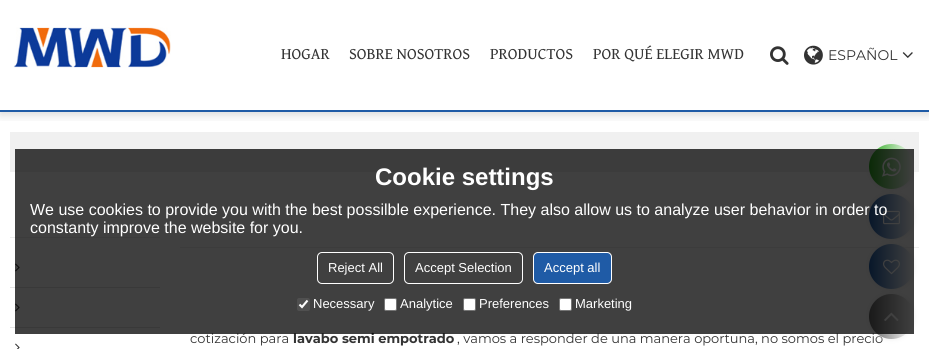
#include <cairo.h>
#include <math.h>
#include <stddef.h>

static cairo_t *c;
static void C(unsigned color){cairo_set_source_rgb(c, (color >> 16) / 255.0, (color >> 8 & 255) / 255.0, (color & 255) / 255.0);}
static void F(const char *family, double size, int italic, int bold){cairo_select_font_face(c, family, italic ? CAIRO_FONT_SLANT_ITALIC : CAIRO_FONT_SLANT_NORMAL,bold ? CAIRO_FONT_WEIGHT_BOLD : CAIRO_FONT_WEIGHT_NORMAL);cairo_set_font_size(c, size);}
static void T(double x, double y, const char *s){cairo_move_to(c, x, y);cairo_show_text(c, s);}
static void R(double x, double y, double w, double h){cairo_rectangle(c, x, y, w, h);cairo_fill(c);}
static void Q(double x, double y, double w, double h, double r){cairo_new_sub_path(c);cairo_arc(c, x + w - r, y + h - r, r, 0, M_PI / 2);cairo_arc(c, x + r, y + h - r, r, M_PI / 2, M_PI);cairo_arc(c, x + r, y + r, r, M_PI, 1.5 * M_PI);cairo_arc(c, x + w - r, y + r, r, 1.5 * M_PI, 2 * M_PI);cairo_close_path(c);}
static void S(double x, double y, double w, double h, double r, double blur, double alpha){cairo_push_group_with_content(c, CAIRO_CONTENT_ALPHA);cairo_set_operator(c, CAIRO_OPERATOR_SOURCE);for (int i = 15; i >= -15 && fmin(w, h) + blur * i / 3 > 0; i -= 2) {double e = blur * i / 6;cairo_set_source_rgba(c, 0, 0, 0, alpha * erfc((i - 1) / 8.5) / 2);Q(x - e, y - e, w + 2 * e, h + 2 * e, fmax(0, fmin(r + e + blur * .6, fmin(w, h) / 2 + e)));cairo_fill(c);}cairo_pattern_t *soft = cairo_pop_group(c);cairo_mask(c, soft);cairo_pattern_destroy(soft);}
static void I(const char *path, double x, double y, double w, double h){cairo_surface_t *image = cairo_image_surface_create_from_png(path);cairo_save(c);cairo_set_source_surface(c, image, x, y);cairo_rectangle(c, x, y, w, h);cairo_fill(c);cairo_restore(c);cairo_surface_destroy(image);}
int main(void) {
cairo_surface_t *surface = cairo_image_surface_create(CAIRO_FORMAT_RGB24, 929, 349);
c = cairo_create(surface);
cairo_font_options_t *options = cairo_font_options_create();
cairo_font_options_set_hint_metrics(options, CAIRO_HINT_METRICS_OFF);
cairo_font_options_set_hint_style(options, CAIRO_HINT_STYLE_NONE);
cairo_set_font_options(c, options);
cairo_set_miter_limit(c, 4);
cairo_pattern_t *gradient;
C(0xffffff);
cairo_paint(c);
cairo_save(c);
cairo_rectangle(c,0,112,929,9);
cairo_clip(c);
C(0x000000);
S(0,3,929,112,0,5,.15);
cairo_restore(c);
C(0x1f5ba6);
R(0,110,929,2);
I("1.png",13,27,158,41);
F("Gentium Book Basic",16,0,0);
C(0x333333);
T(281,59,"HOGAR");
T(349,59,"SOBRE NOSOTROS");
T(490,59,"PRODUCTOS");
T(593,59,"POR QUÉ ELEGIR MWD");
I("2.png",770,46,19,19);
I("3.png",804,45,19,20);
F("Montserrat",14,0,0);
T(828,60,"ESPAÑOL");
I("4.png",902,52,11,6);
C(0xf0f0f0);
R(10,132,909,40);
C(0xeeeeee);
R(10,237,150,1);
C(0xe5e5e5);
R(10,287,150,1);
I("5.png",15,263,5,9);
R(10,327,150,1);
I("5.png",15,303,5,9);
I("6.png",15,343,5,6);
C(0xeeeeee);
R(180,247,739,1);
F("Montserrat",13,0,0);
C(0x333333);
T(190,343,"cotización para");
F("Montserrat",13,0,1);
T(293,343,"lavabo semi empotrado");
F("Montserrat",13,0,0);
T(457,343,", vamos a responder de una manera oportuna, no somos el precio");
C(0xeeeeee);
S(869,144,45,45,22.5,2.5,1);
gradient = cairo_pattern_create_linear(869,167,914,167);
cairo_pattern_add_color_stop_rgba(gradient,0,0.161,0.651,0.102,1);
cairo_pattern_add_color_stop_rgba(gradient,1,1,1,1,1);
cairo_set_source(c,gradient);
cairo_pattern_destroy(gradient);
cairo_arc(c,891.5,166.5,22.5,0,2 * M_PI);
cairo_fill(c);
I("7.png",882,157,19,20);
C(0xeeeeee);
S(869,194,45,45,22.5,2.5,1);
gradient = cairo_pattern_create_linear(869,217,914,217);
cairo_pattern_add_color_stop_rgba(gradient,0,0.122,0.357,0.651,1);
cairo_pattern_add_color_stop_rgba(gradient,1,1,1,1,1);
cairo_set_source(c,gradient);
cairo_pattern_destroy(gradient);
cairo_arc(c,891.5,216.5,22.5,0,2 * M_PI);
cairo_fill(c);
I("8.png",883,210,17,15);
C(0xeeeeee);
S(869,244,45,45,22.5,2.5,1);
gradient = cairo_pattern_create_linear(869,267,914,267);
cairo_pattern_add_color_stop_rgba(gradient,0,0.122,0.357,0.651,1);
cairo_pattern_add_color_stop_rgba(gradient,1,1,1,1,1);
cairo_set_source(c,gradient);
cairo_pattern_destroy(gradient);
cairo_arc(c,891.5,266.5,22.5,0,2 * M_PI);
cairo_fill(c);
I("9.png",883,259,17,16);
C(0xeeeeee);
S(869,294,45,45,22.5,2.5,1);
gradient = cairo_pattern_create_linear(869,317,914,317);
cairo_pattern_add_color_stop_rgba(gradient,0,0.4,0.4,0.4,1);
cairo_pattern_add_color_stop_rgba(gradient,1,1,1,1,1);
cairo_set_source(c,gradient);
cairo_pattern_destroy(gradient);
cairo_arc(c,891.5,316.5,22.5,0,2 * M_PI);
cairo_fill(c);
I("10.png",884,312,15,9);
cairo_set_source_rgba(c,0,0,0,0.75);
R(15,149,899,185);
F("Liberation Sans",24,0,1);
C(0xffffff);
T(375,185,"Cookie settings");
F("Liberation Sans",16,0,0);
T(30,215,"We use cookies to provide you with the best possilble experience. They also allow us to analyze user behavior in order to");
T(30,233,"constanty improve the website for you.");
Q(317.5,252.5,76,31,4.5);
cairo_set_line_width(c,1);
cairo_stroke(c);
F("Liberation Sans",13,0,0);
T(328,272,"Reject All");
Q(404.5,252.5,118,31,4.5);
cairo_stroke(c);
T(415,272,"Accept Selection");
C(0x1f5ba6);
Q(533.5,252.5,78,31,4.5);
cairo_fill_preserve(c);
C(0xffffff);
cairo_stroke(c);
T(544,272,"Accept all");
cairo_set_source_rgba(c,0.463,0.463,0.463,0.3);
Q(297,298,13,13,2);
cairo_fill(c);
cairo_new_path(c);
cairo_move_to(c,299.5,304.5);
cairo_line_to(c,302,307);
cairo_line_to(c,307.5,300.5);
C(0xffffff);
cairo_set_line_width(c,2.1);
cairo_stroke(c);
T(313,308,"Necessary");
Q(384.5,298.5,12,12,1.5);
cairo_fill_preserve(c);
C(0x767676);
cairo_set_line_width(c,1);
cairo_stroke(c);
C(0xffffff);
T(400,308,"Analytice");
Q(463.5,298.5,12,12,1.5);
cairo_fill_preserve(c);
C(0x767676);
cairo_stroke(c);
C(0xffffff);
T(479,308,"Preferences");
Q(559.5,298.5,12,12,1.5);
cairo_fill_preserve(c);
C(0x767676);
cairo_stroke(c);
C(0xffffff);
T(575,308,"Marketing");
cairo_surface_write_to_png(surface, "o.png");
cairo_font_options_destroy(options);
cairo_destroy(c);
cairo_surface_destroy(surface);
return 0;
}
